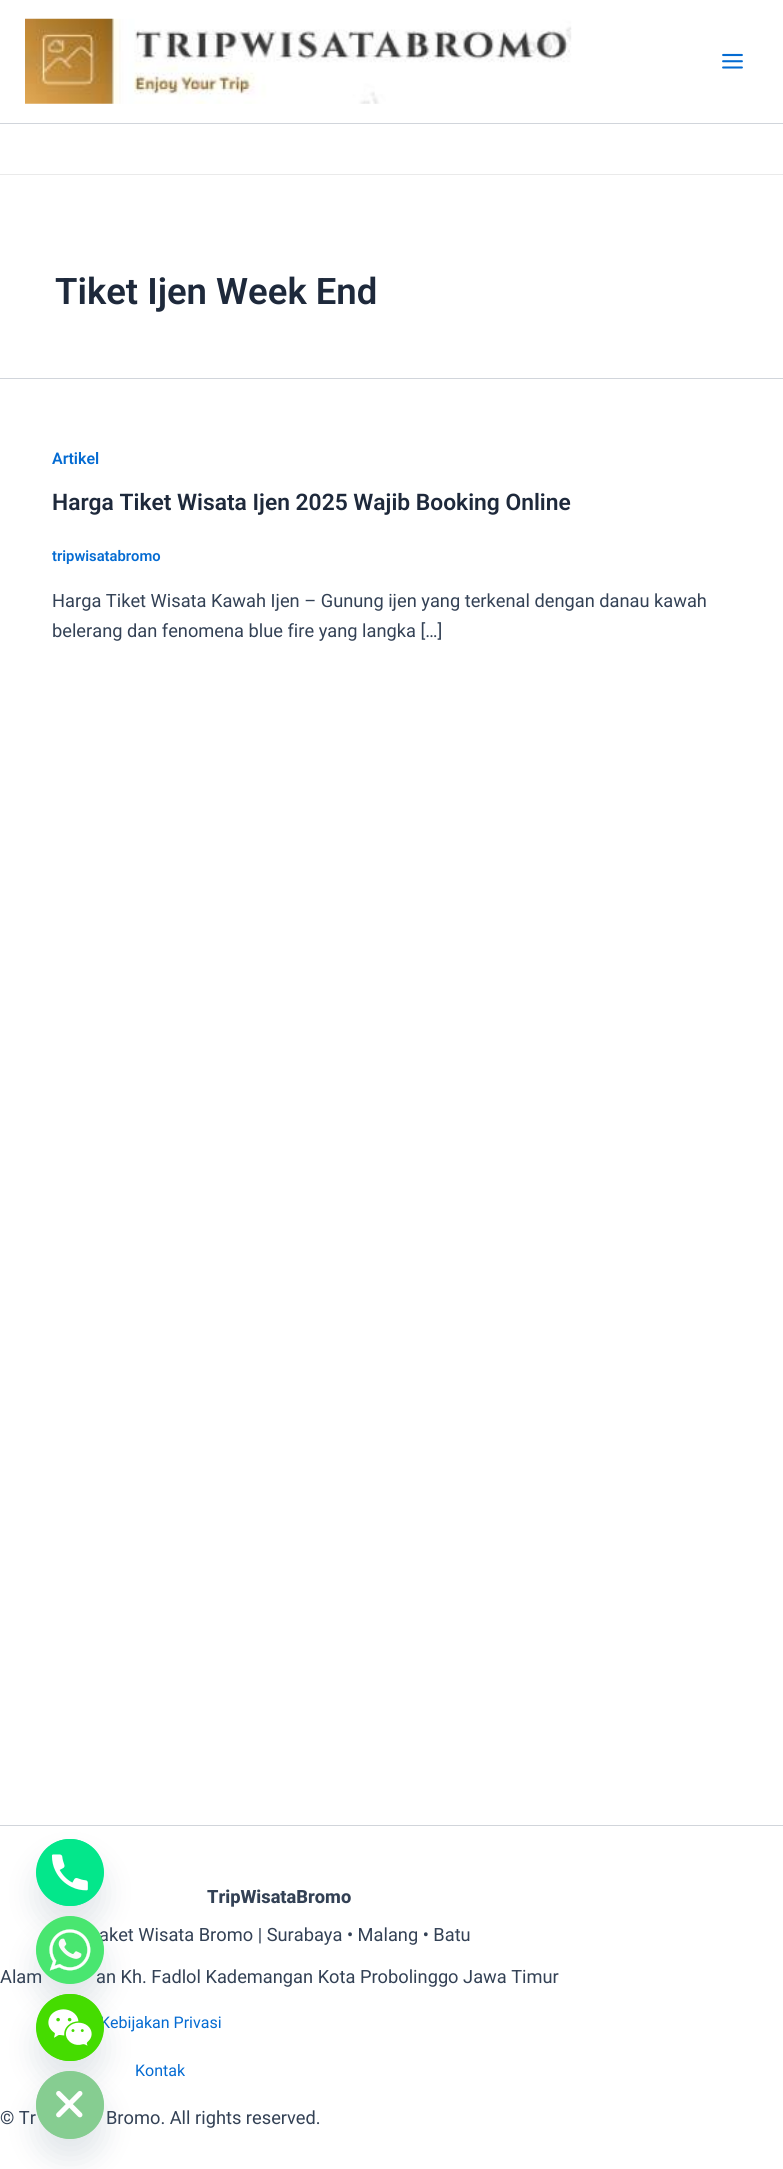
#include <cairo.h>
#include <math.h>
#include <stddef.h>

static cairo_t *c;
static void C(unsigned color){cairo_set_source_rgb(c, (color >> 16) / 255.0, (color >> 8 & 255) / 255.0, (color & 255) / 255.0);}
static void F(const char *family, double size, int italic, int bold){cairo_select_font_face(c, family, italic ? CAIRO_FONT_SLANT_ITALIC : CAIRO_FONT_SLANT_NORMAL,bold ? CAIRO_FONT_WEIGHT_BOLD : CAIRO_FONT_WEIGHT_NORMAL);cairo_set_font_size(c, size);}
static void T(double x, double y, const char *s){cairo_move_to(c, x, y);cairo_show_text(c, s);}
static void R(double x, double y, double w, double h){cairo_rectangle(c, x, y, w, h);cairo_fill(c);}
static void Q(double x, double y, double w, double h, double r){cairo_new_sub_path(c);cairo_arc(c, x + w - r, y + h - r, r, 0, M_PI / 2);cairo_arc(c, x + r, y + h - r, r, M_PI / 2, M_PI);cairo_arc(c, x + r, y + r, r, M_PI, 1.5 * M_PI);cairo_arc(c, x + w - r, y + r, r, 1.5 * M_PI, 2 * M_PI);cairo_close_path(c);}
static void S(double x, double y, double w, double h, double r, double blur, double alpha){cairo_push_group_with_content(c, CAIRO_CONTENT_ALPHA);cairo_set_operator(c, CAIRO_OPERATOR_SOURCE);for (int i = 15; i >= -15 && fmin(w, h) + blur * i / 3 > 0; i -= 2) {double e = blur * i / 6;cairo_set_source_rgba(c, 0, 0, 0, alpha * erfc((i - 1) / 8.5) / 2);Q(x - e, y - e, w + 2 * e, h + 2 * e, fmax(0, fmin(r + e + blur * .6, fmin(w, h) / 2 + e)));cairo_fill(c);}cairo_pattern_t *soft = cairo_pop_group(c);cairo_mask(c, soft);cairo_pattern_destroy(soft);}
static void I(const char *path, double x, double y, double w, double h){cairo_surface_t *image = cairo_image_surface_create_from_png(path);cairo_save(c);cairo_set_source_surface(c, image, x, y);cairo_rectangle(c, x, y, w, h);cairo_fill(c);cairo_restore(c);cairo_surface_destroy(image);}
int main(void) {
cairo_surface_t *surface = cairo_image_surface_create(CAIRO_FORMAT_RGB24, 783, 2169);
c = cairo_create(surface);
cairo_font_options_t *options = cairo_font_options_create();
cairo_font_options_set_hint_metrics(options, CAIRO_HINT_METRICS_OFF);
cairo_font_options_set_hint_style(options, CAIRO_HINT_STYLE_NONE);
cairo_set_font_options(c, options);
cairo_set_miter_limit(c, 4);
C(0xffffff);
cairo_paint(c);
C(0xd1d5db);
R(0,123,783,1);
I("1.png",25,18,547,86);
I("2.png",722,53,21,16);
C(0xeaeaea);
R(0,174,783,1);
C(0xd1d5db);
R(0,378,783,1);
F("Roboto SemiBold",36.5,0,0);
C(0x1e293b);
T(55,304,"Tiket Ijen Week End");
F("Roboto SemiBold",16,0,0);
C(0x046bd2);
T(52,464,"Artikel");
F("Roboto SemiBold",22.8,0,0);
C(0x1e293b);
T(52,510,"Harga Tiket Wisata Ijen 2025 Wajib Booking Online");
F("Roboto SemiBold",14.75,0,0);
C(0x046bd2);
T(52,561,"tripwisatabromo");
F("Roboto",18.25,0,0);
C(0x334155);
T(52,607,"Harga Tiket Wisata Kawah Ijen – Gunung ijen yang terkenal dengan danau kawah");
T(52,637,"belerang dan fenomena blue fire yang langka […]");
C(0xd1d5db);
R(0,1825,783,1);
F("Roboto ExtraBold",18.25,0,0);
C(0x334155);
T(207,1903,"TripWisataBromo");
F("Roboto",18.25,0,0);
T(99,1941,"aket Wisata Bromo | Surabaya • Malang • Batu");
T(0,1983,"Alam");
T(96,1983,"an Kh. Fadlol Kademangan Kota Probolinggo Jawa Timur");
F("Roboto",16,0,0);
C(0x046bd2);
T(100,2028,"Kebijakan Privasi");
T(135,2076,"Kontak");
F("Roboto",18.25,0,0);
C(0x334155);
T(0,2124,"© Tr");
T(106,2124,"Bromo. All rights reserved.");
C(0x49687e);
S(36,1859,68,67,33.5,15,.16);
C(0x03e78b);
Q(36,1839,68,67,33.5);
cairo_fill(c);
I("3.png",36,1839,68,67);
C(0x49687e);
S(36,1936,68,68,34,15,.16);
C(0x49e670);
cairo_arc(c,70,1950,34,0,2 * M_PI);
cairo_fill(c);
I("4.png",36,1916,68,68);
C(0x49687e);
S(36,2014,68,67,33.5,15,.16);
C(0x45dc00);
Q(36,1994,68,67,33.5);
cairo_fill(c);
I("5.png",36,1994,68,67);
C(0x49687e);
S(36,2091,68,68,34,15,.16);
C(0x86cd91);
cairo_new_path(c);
cairo_move_to(c,70,2139);
cairo_curve_to(c,51,2139,36,2124,36,2105);
cairo_curve_to(c,36,2086,51,2071,70,2071);
cairo_curve_to(c,89,2071,104,2086,104,2105);
cairo_curve_to(c,104,2124,89,2139,70,2139);
cairo_close_path(c);
cairo_fill(c);
I("6.png",36,2071,68,68);
cairo_surface_write_to_png(surface, "o.png");
cairo_font_options_destroy(options);
cairo_destroy(c);
cairo_surface_destroy(surface);
return 0;
}
